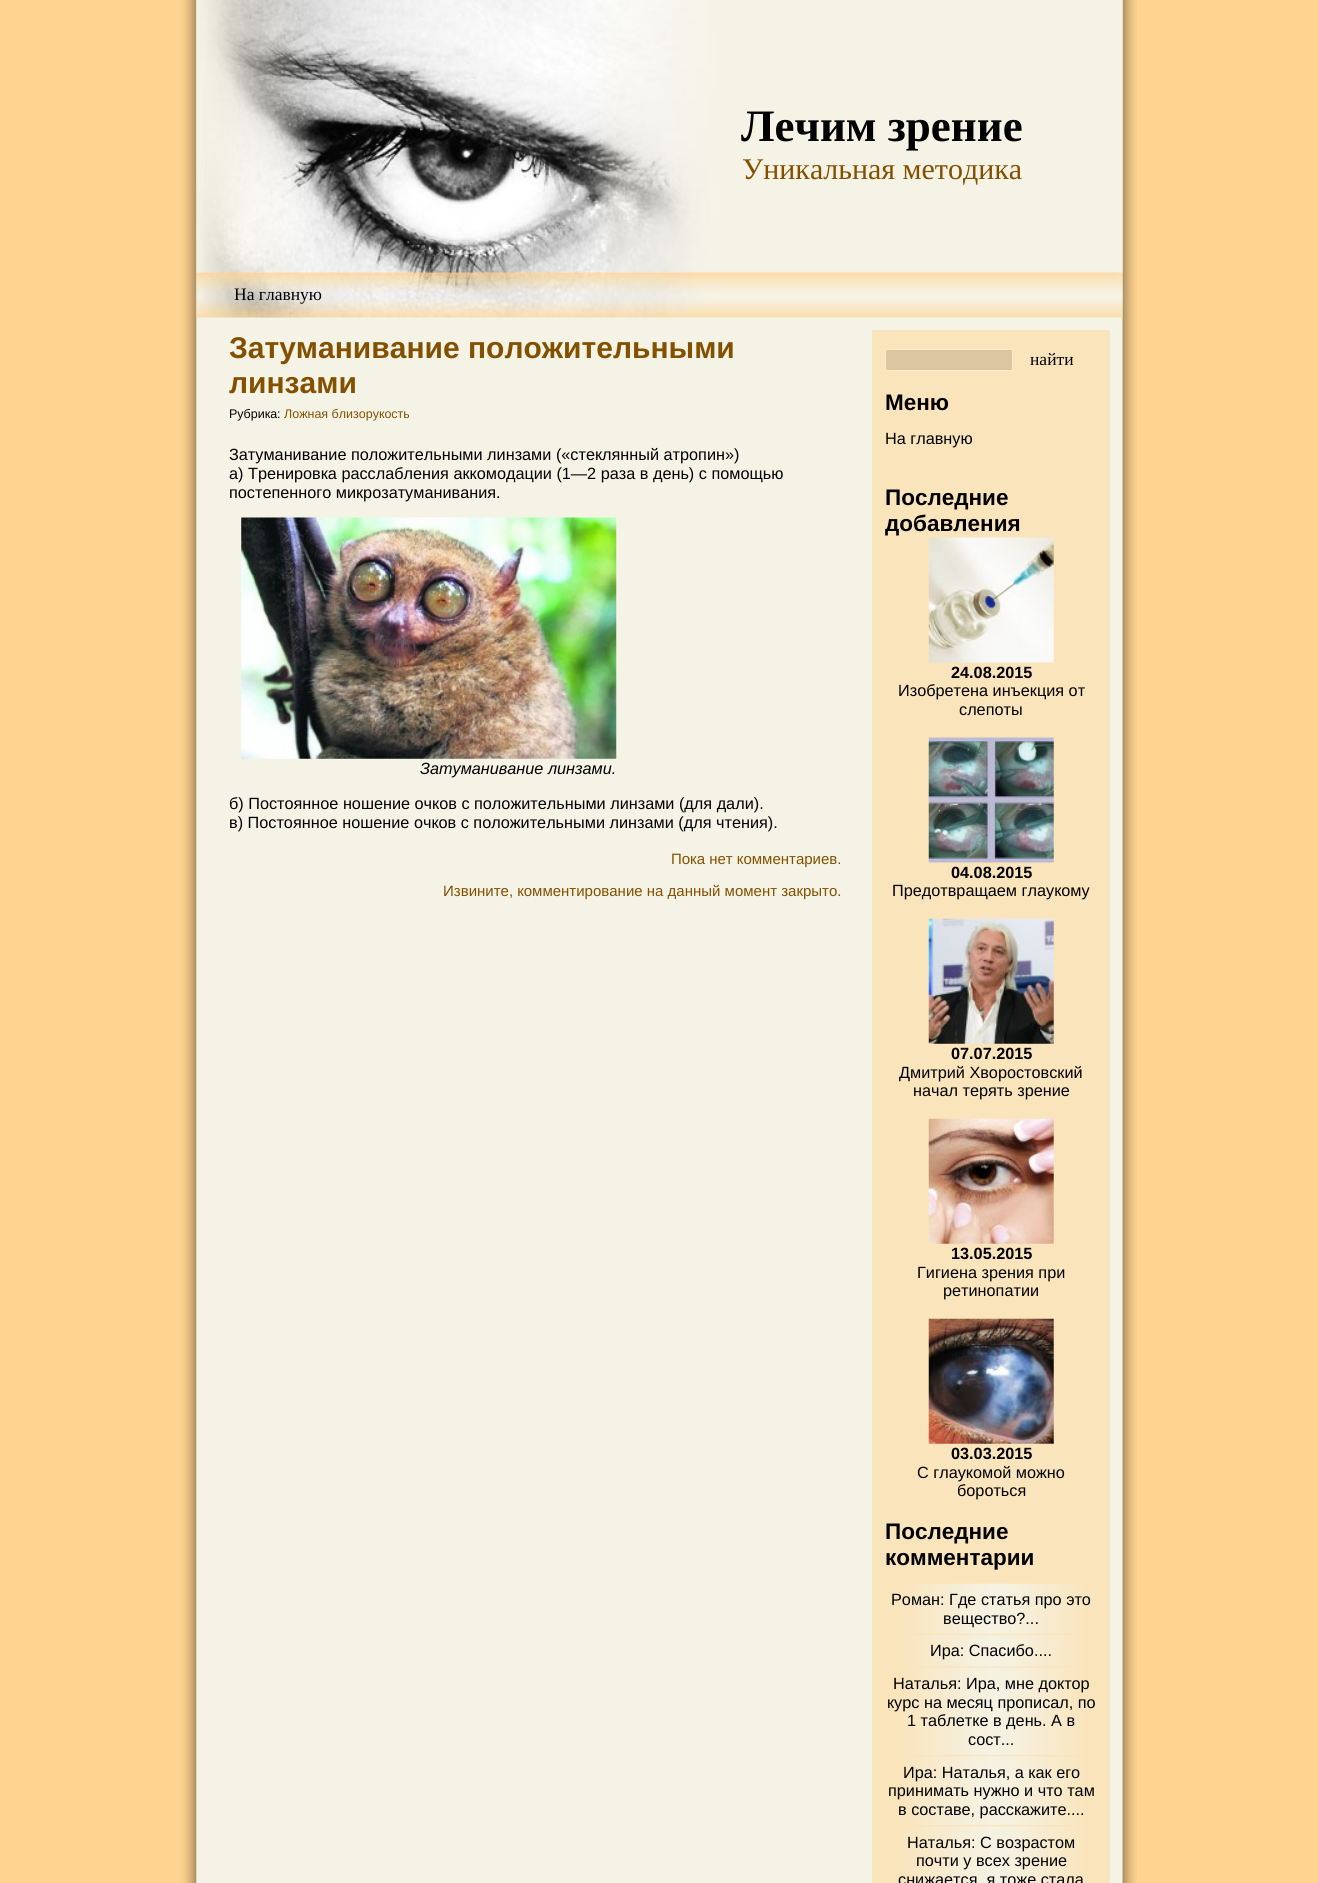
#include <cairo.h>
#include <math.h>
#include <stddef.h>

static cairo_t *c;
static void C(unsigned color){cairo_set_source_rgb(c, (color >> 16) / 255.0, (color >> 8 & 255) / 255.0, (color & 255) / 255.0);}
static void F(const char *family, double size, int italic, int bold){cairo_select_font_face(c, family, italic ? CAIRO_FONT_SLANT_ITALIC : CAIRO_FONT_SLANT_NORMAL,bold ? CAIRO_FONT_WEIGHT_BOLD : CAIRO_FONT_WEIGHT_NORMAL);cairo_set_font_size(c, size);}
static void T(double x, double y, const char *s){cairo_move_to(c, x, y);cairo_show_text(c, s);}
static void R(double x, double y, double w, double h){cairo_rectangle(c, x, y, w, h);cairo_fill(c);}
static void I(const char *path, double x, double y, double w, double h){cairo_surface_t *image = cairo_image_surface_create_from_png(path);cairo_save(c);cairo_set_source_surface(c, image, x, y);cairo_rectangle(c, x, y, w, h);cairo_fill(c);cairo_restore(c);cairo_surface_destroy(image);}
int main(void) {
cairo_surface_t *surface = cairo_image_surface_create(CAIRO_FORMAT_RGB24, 1318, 1883);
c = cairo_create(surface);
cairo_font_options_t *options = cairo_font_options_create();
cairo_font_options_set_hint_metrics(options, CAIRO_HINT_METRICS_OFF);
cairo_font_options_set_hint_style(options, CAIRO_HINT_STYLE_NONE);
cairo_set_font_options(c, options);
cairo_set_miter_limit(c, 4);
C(0xffd490);
cairo_paint(c);
I("1.png",181,0,956,1883);
I("2.png",196,0,927,318);
F("Liberation Serif",45,0,1);
C(0x000000);
T(741,141,"Лечим зрение");
F("Liberation Serif",30,0,0);
C(0x835000);
T(742,179,"Уникальная методика");
F("Liberation Serif",17.5,0,0);
C(0x000000);
T(234,300,"На главную");
C(0xfae4bb);
R(872,330,238,1553);
F("Liberation Sans",30,0,1);
C(0x835000);
T(229,358,"Затуманивание положительными");
T(229,393,"линзами");
F("Liberation Sans",12.5,0,0);
C(0x000000);
T(229,418,"Рубрика:");
C(0x835000);
T(284,418,"Ложная близорукость");
F("Liberation Sans",16.25,0,0);
C(0x000000);
T(229,460,"Затуманивание положительными линзами («стеклянный атропин»)");
T(229,479,"а) Тренировка расслабления аккомодации (1—2 раза в день) с помощью");
T(229,498,"постепенного микрозатуманивания.");
I("3.png",241,517,376,242);
F("Liberation Sans",16.25,1,0);
T(420,774,"Затуманивание линзами.");
F("Liberation Sans",16.25,0,0);
T(229,809,"б) Постоянное ношение очков с положительными линзами (для дали).");
T(229,828,"в) Постоянное ношение очков с положительными линзами (для чтения).");
F("Liberation Sans",15,0,0);
C(0x835000);
T(671,864,"Пока нет комментариев.");
T(443,896,"Извините, комментирование на данный момент закрыто.");
C(0xdbc69f);
cairo_rectangle(c,885.5,349.5,127,21);
cairo_fill_preserve(c);
C(0xfbeacb);
cairo_set_line_width(c,1);
cairo_stroke(c);
F("Liberation Serif",17.5,0,0);
C(0x000000);
T(1030,365,"найти");
F("Liberation Sans",22.5,0,1);
T(885,410,"Меню");
F("Liberation Sans",16.25,0,0);
T(885,444,"На главную");
F("Liberation Sans",22.5,0,1);
T(885,505,"Последние");
T(885,531,"добавления");
I("4.png",928,537,126,126);
F("Liberation Sans",16.25,0,1);
T(951,678,"24.08.2015");
F("Liberation Sans",16.25,0,0);
T(898,696,"Изобретена инъекция от");
T(959,715,"слепоты");
I("5.png",928,737,126,126);
F("Liberation Sans",16.25,0,1);
T(951,878,"04.08.2015");
F("Liberation Sans",16.25,0,0);
T(892,896,"Предотвращаем глаукому");
I("6.png",928,918,126,126);
F("Liberation Sans",16.25,0,1);
T(951,1059,"07.07.2015");
F("Liberation Sans",16.25,0,0);
T(899,1078,"Дмитрий Хворостовский");
T(913,1096,"начал терять зрение");
I("7.png",928,1118,126,126);
F("Liberation Sans",16.25,0,1);
T(951,1259,"13.05.2015");
F("Liberation Sans",16.25,0,0);
T(917,1278,"Гигиена зрения при");
T(943,1296,"ретинопатии");
I("8.png",928,1318,126,126);
F("Liberation Sans",16.25,0,1);
T(951,1459,"03.03.2015");
F("Liberation Sans",16.25,0,0);
T(917,1478,"С глаукомой можно");
T(957,1496,"бороться");
F("Liberation Sans",22.5,0,1);
T(885,1539,"Последние");
T(885,1565,"комментарии");
I("9.png",904,1583,180,51);
F("Liberation Sans",16.25,0,0);
T(891,1605,"Роман: Где статья про это");
T(943,1624,"вещество?...");
I("10.png",904,1635,180,32);
T(930,1656,"Ира: Спасибо....");
I("11.png",904,1667,180,88);
T(893,1689,"Наталья: Ира, мне доктор");
T(887,1708,"курс на месяц прописал, по");
T(907,1726,"1 таблетке в день. А в");
T(968,1745,"сост...");
I("12.png",904,1756,180,69);
T(903,1778,"Ира: Наталья, а как его");
T(888,1796,"принимать нужно и что там");
T(898,1815,"в составе, расскажите....");
I("13.png",904,1826,180,57);
T(907,1848,"Наталья: С возрастом");
T(916,1866,"почти у всех зрение");
T(898,1885,"снижается, я тоже стала");
cairo_surface_write_to_png(surface, "o.png");
cairo_font_options_destroy(options);
cairo_destroy(c);
cairo_surface_destroy(surface);
return 0;
}
